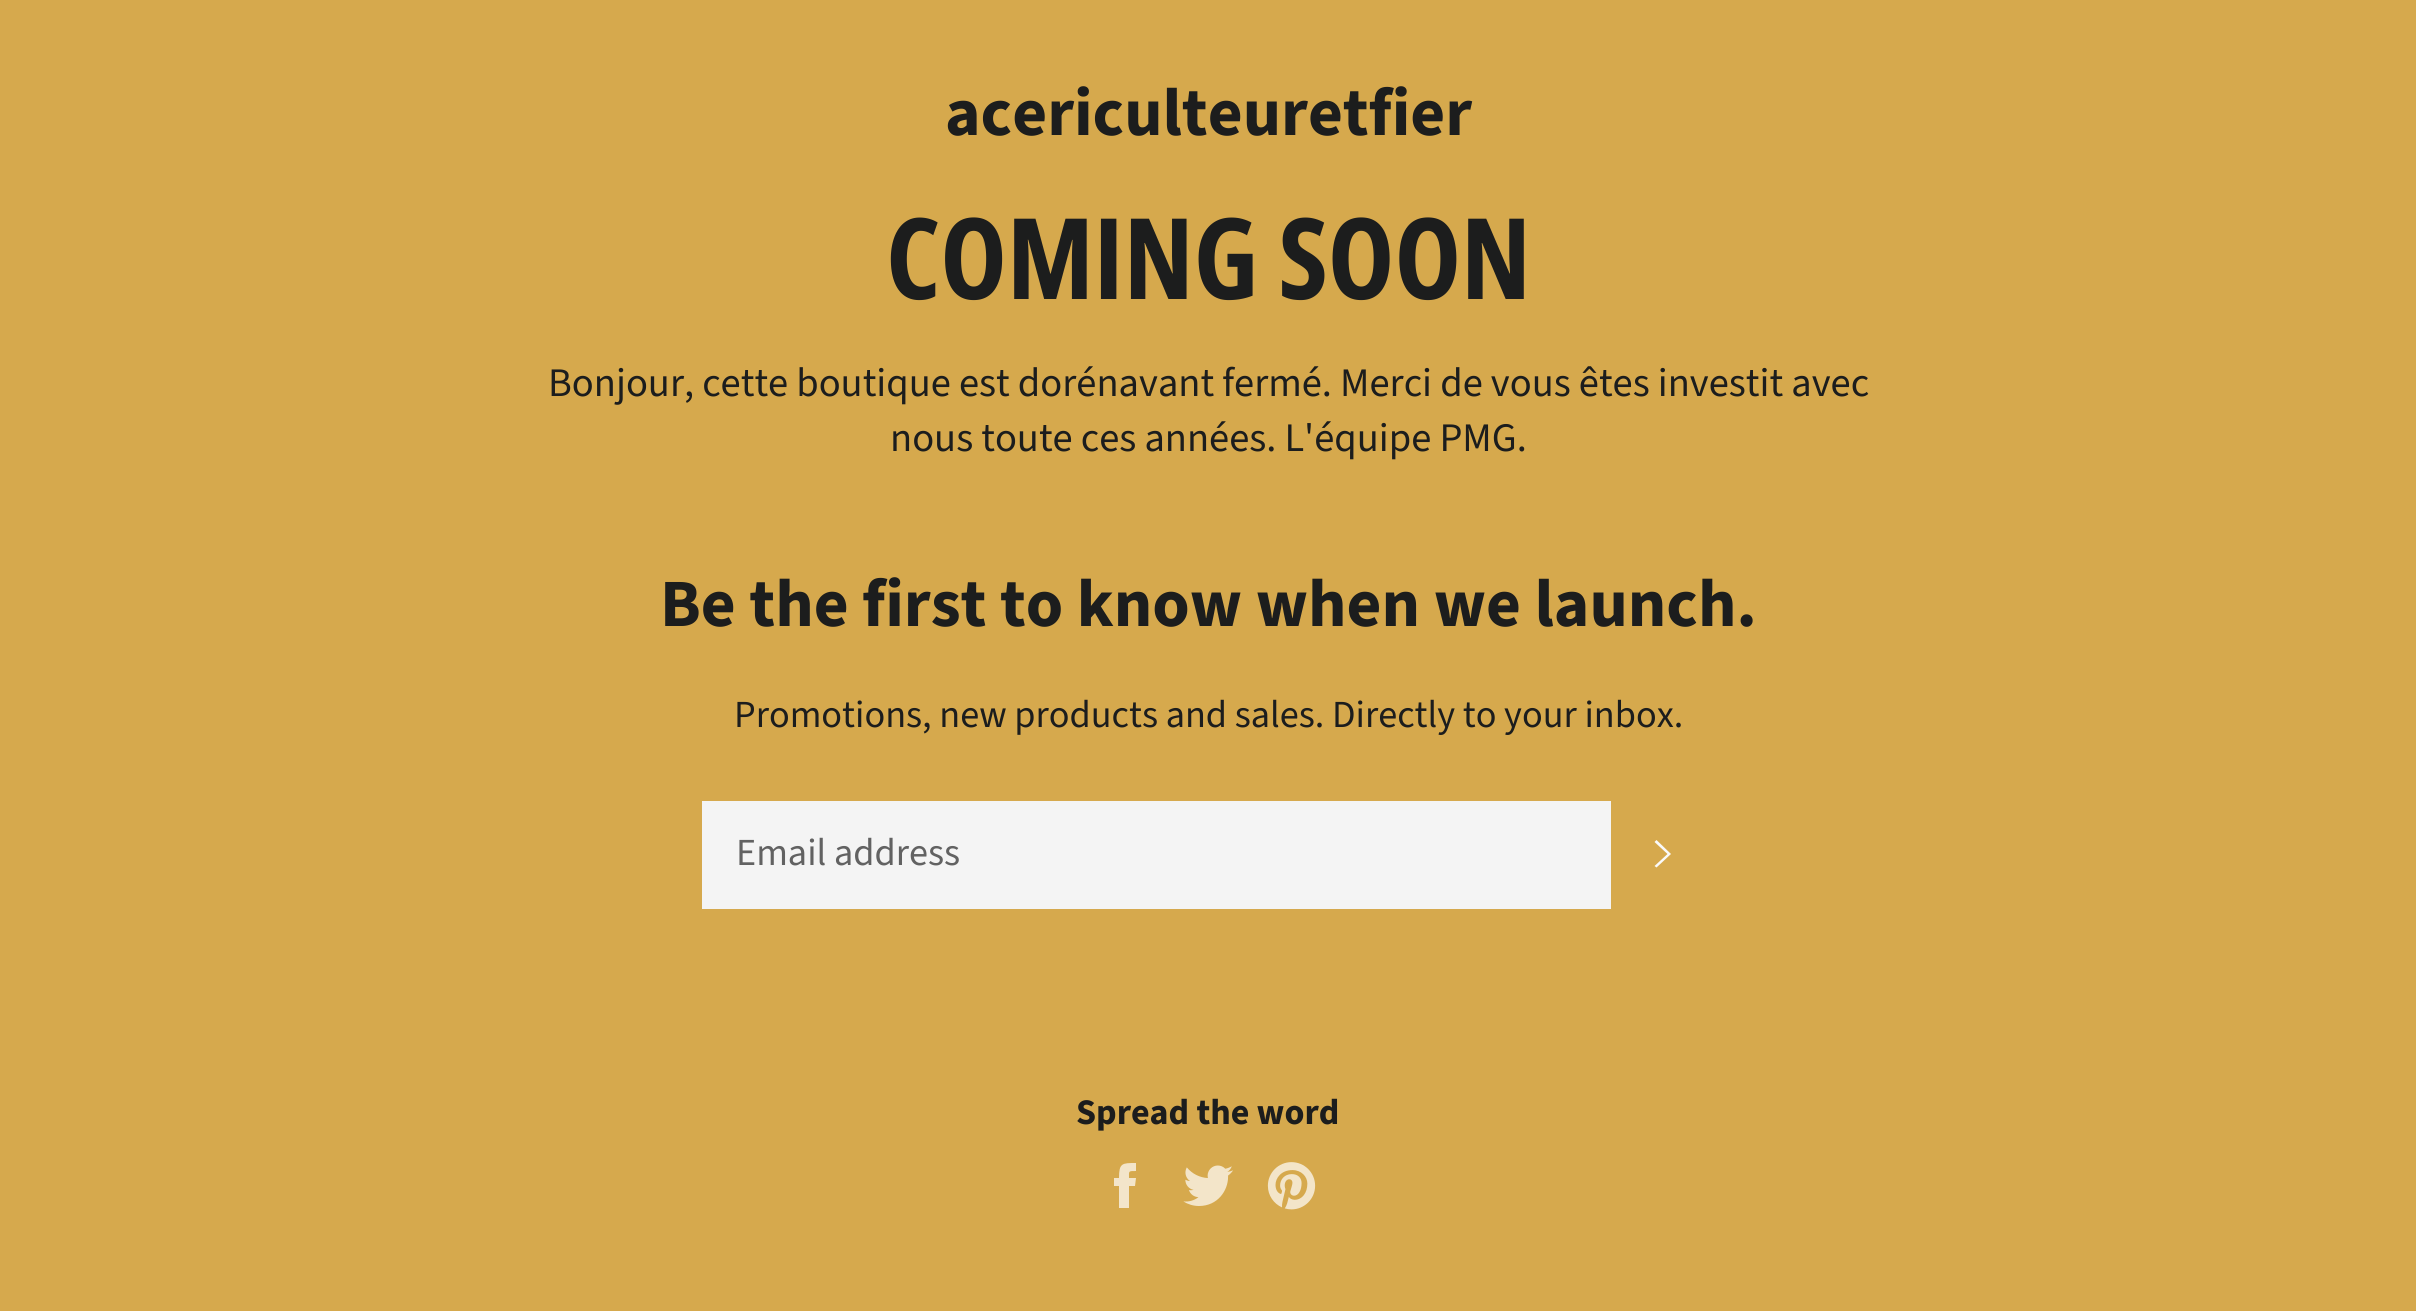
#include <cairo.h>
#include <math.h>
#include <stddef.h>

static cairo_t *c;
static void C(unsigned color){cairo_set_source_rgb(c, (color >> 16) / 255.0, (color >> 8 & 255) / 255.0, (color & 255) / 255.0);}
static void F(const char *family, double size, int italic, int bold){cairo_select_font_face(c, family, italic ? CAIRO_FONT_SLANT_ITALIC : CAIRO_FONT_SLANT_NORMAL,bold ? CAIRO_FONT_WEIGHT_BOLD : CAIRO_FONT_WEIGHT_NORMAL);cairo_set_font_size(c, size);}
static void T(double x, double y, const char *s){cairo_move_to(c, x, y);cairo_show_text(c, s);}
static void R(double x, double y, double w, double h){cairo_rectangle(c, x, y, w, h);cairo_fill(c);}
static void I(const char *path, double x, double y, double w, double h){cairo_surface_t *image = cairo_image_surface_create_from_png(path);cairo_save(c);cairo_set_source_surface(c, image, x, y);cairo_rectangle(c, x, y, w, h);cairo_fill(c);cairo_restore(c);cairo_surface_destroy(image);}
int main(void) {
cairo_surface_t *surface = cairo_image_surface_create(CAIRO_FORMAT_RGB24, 2416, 1311);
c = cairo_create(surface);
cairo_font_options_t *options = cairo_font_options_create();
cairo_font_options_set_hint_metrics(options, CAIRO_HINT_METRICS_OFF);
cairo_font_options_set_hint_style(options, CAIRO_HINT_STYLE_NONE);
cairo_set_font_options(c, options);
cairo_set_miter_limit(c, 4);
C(0xd6a94d);
cairo_paint(c);
F("Source Sans Pro",67.5,0,1);
C(0x1c1d1d);
T(945,135,"acericulteuretfier");
F("Open Sans Condensed",112.5,0,1);
T(886,299,"COMING SOON");
F("Source Sans Pro",40.5,0,0);
T(548,396,"Bonjour, cette boutique est dorénavant fermé. Merci de vous êtes investit avec");
T(890,451,"nous toute ces années. L'équipe PMG.");
F("Source Sans Pro",67.5,0,1);
T(660,626,"Be the first to know when we launch.");
F("Source Sans Pro",38.25,0,0);
T(734,727,"Promotions, new products and sales. Directly to your inbox.");
C(0xf4f4f4);
R(702,801,909,108);
C(0x626262);
T(736,865,"Email address");
C(0xfafafa);
cairo_new_path(c);
cairo_move_to(c,1654.5,842);
cairo_line_to(c,1656.5,840);
cairo_line_to(c,1671,854);
cairo_line_to(c,1656.5,867.5);
cairo_line_to(c,1654.5,866);
cairo_line_to(c,1667.5,854);
cairo_close_path(c);
cairo_fill(c);
F("Source Sans Pro",36,0,1);
C(0x1c1d1d);
T(1076,1124,"Spread the word");
C(0xf3e5ca);
cairo_new_path(c);
cairo_move_to(c,1129,1178);
cairo_curve_to(c,1129,1171,1128,1171,1136,1171);
cairo_line_to(c,1136,1163);
cairo_curve_to(c,1122,1163,1119,1163,1119,1178);
cairo_line_to(c,1114,1178);
cairo_line_to(c,1114,1186);
cairo_line_to(c,1119,1186);
cairo_line_to(c,1119,1208);
cairo_line_to(c,1129,1208);
cairo_line_to(c,1129,1186);
cairo_line_to(c,1135,1186);
cairo_line_to(c,1136,1178);
cairo_close_path(c);
cairo_fill(c);
I("1.png",1183,1165,50,41);
I("2.png",1267,1162,49,48);
cairo_surface_write_to_png(surface, "o.png");
cairo_font_options_destroy(options);
cairo_destroy(c);
cairo_surface_destroy(surface);
return 0;
}
